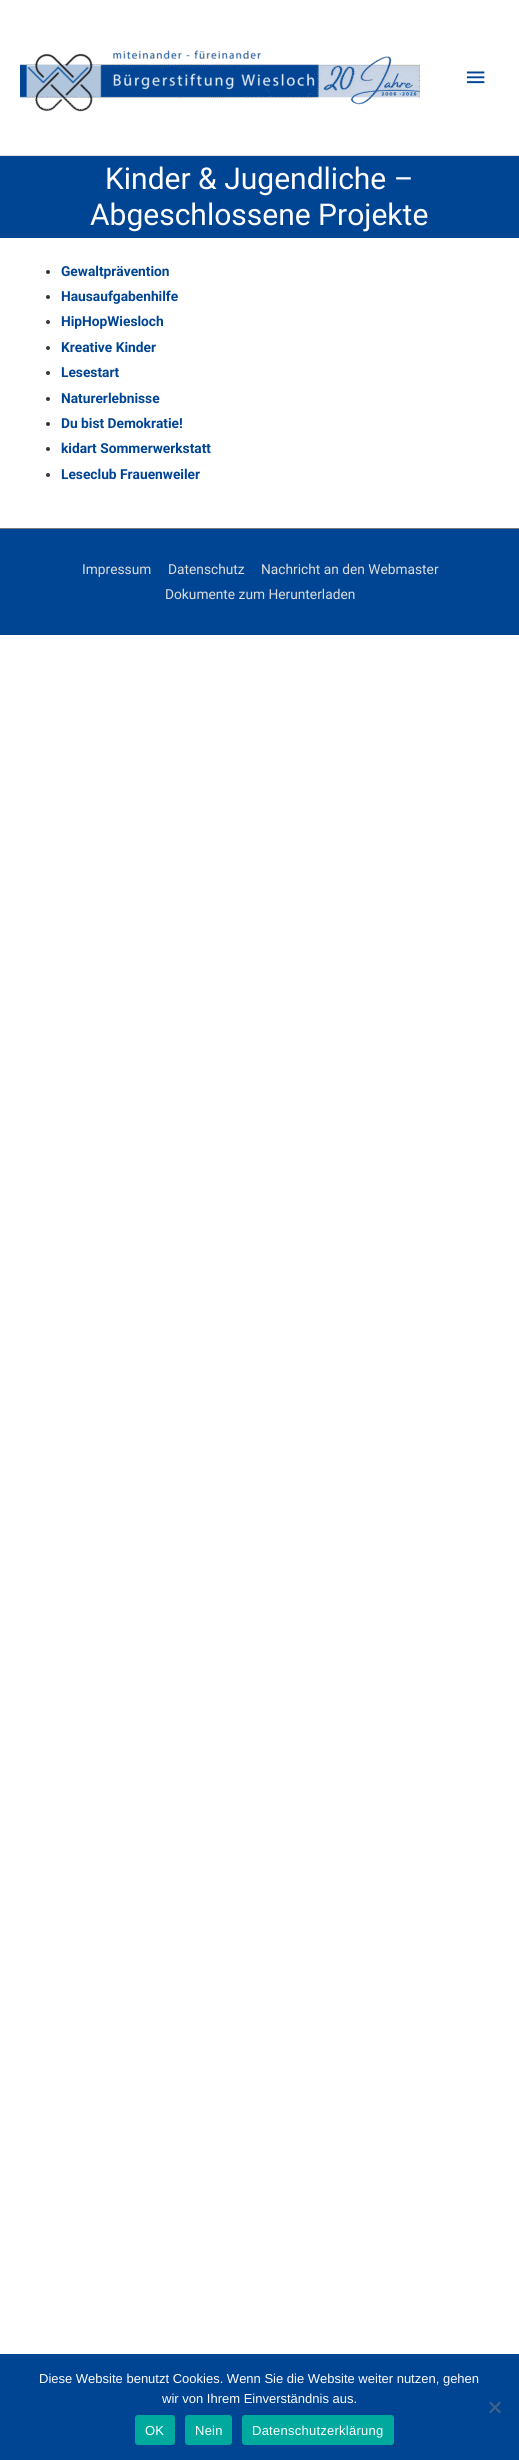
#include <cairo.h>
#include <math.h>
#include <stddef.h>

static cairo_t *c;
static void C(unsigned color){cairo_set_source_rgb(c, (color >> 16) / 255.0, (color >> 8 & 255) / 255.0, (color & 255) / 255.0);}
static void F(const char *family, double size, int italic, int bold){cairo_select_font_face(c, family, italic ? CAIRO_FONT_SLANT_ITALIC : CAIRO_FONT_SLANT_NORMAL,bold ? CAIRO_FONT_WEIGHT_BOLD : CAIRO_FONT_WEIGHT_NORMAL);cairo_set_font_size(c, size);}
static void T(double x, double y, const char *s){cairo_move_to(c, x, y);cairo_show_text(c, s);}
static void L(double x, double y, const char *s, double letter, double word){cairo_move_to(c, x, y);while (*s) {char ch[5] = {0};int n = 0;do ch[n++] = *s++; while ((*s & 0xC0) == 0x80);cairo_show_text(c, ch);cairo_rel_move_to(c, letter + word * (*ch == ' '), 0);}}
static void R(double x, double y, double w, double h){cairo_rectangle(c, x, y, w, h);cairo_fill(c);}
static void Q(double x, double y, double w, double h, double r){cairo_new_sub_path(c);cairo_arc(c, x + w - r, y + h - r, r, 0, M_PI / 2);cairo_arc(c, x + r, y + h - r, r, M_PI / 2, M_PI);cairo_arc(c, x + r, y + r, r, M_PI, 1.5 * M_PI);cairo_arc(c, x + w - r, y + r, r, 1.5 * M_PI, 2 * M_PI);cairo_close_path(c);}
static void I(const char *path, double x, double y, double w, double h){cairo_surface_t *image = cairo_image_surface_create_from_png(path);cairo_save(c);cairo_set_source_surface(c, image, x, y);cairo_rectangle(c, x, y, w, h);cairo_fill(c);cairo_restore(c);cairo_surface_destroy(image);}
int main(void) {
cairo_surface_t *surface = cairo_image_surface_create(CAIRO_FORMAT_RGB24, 519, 2460);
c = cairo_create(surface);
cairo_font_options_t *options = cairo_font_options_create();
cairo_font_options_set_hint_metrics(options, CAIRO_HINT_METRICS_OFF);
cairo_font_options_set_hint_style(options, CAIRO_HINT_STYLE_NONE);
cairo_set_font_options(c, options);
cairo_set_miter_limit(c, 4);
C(0xffffff);
cairo_paint(c);
C(0xdddddd);
R(0,155,519,1);
I("1.png",20,50,400,62);
I("2.png",466,71,19,13);
C(0x004494);
R(0,156,519,82);
F("Roboto",30,0,0);
C(0xffffff);
T(105,189,"Kinder & Jugendliche –");
T(90,225,"Abgeschlossene Projekte");
C(0x3a3a3a);
cairo_new_path(c);
cairo_arc(c,48,272,2,0,2 * M_PI);
cairo_fill(c);
F("Roboto",13.75,0,1);
C(0x004494);
T(61,276,"Gewaltprävention");
C(0x3a3a3a);
cairo_new_path(c);
cairo_arc(c,48,297,2,0,2 * M_PI);
cairo_fill(c);
C(0x004494);
T(61,301,"Hausaufgabenhilfe");
C(0x3a3a3a);
cairo_new_path(c);
cairo_arc(c,48,322,2,0,2 * M_PI);
cairo_fill(c);
C(0x004494);
T(61,326,"HipHopWiesloch");
C(0x3a3a3a);
cairo_new_path(c);
cairo_arc(c,48,348,2,0,2 * M_PI);
cairo_fill(c);
C(0x004494);
T(61,352,"Kreative Kinder");
C(0x3a3a3a);
cairo_new_path(c);
cairo_arc(c,48,373,2,0,2 * M_PI);
cairo_fill(c);
C(0x004494);
T(61,377,"Lesestart");
C(0x3a3a3a);
cairo_new_path(c);
cairo_arc(c,48,399,2,0,2 * M_PI);
cairo_fill(c);
C(0x004494);
T(61,403,"Naturerlebnisse");
C(0x3a3a3a);
cairo_new_path(c);
cairo_arc(c,48,424,2,0,2 * M_PI);
cairo_fill(c);
C(0x004494);
T(61,428,"Du bist Demokratie!");
C(0x3a3a3a);
cairo_new_path(c);
cairo_arc(c,48,449,2,0,2 * M_PI);
cairo_fill(c);
C(0x004494);
T(61,453,"kidart Sommerwerkstatt");
C(0x3a3a3a);
cairo_new_path(c);
cairo_arc(c,48,475,2,0,2 * M_PI);
cairo_fill(c);
C(0x004494);
T(61,479,"Leseclub Frauenweiler");
C(0x7a7a7a);
R(0,528,519,1);
C(0x004494);
R(0,529,519,106);
F("Roboto",13.75,0,0);
C(0xdddddd);
T(82,574,"Impressum");
T(168,574,"Datenschutz");
T(261,574,"Nachricht an den Webmaster");
T(165,599,"Dokumente zum Herunterladen");
C(0x004494);
R(0,2354,519,106);
F("Liberation Sans",13,0,0);
C(0xffffff);
T(39,2383,"Diese Website benutzt Cookies. Wenn Sie die Website weiter nutzen, gehen");
T(162,2403,"wir von Ihrem Einverständnis aus.");
C(0x40628a);
cairo_new_path(c);
cairo_move_to(c,499.5,2401.5);
cairo_line_to(c,501,2403);
cairo_line_to(c,490.5,2413.5);
cairo_line_to(c,489,2412);
cairo_close_path(c);
cairo_fill(c);
cairo_new_path(c);
cairo_move_to(c,489,2403);
cairo_line_to(c,490.5,2401.5);
cairo_line_to(c,501,2412);
cairo_line_to(c,499.5,2413.5);
cairo_close_path(c);
cairo_fill(c);
C(0x00a99d);
Q(135,2415,40,30,3);
cairo_fill(c);
C(0xffffff);
L(145,2435,"OK",.25,0);
C(0x00a99d);
Q(185,2415,47,30,3);
cairo_fill(c);
C(0xffffff);
L(195,2435,"Nein",.25,0);
C(0x00a99d);
Q(242,2415,152,30,3);
cairo_fill(c);
C(0xffffff);
L(252,2435,"Datenschutzerklärung",.25,0);
cairo_surface_write_to_png(surface, "o.png");
cairo_font_options_destroy(options);
cairo_destroy(c);
cairo_surface_destroy(surface);
return 0;
}
